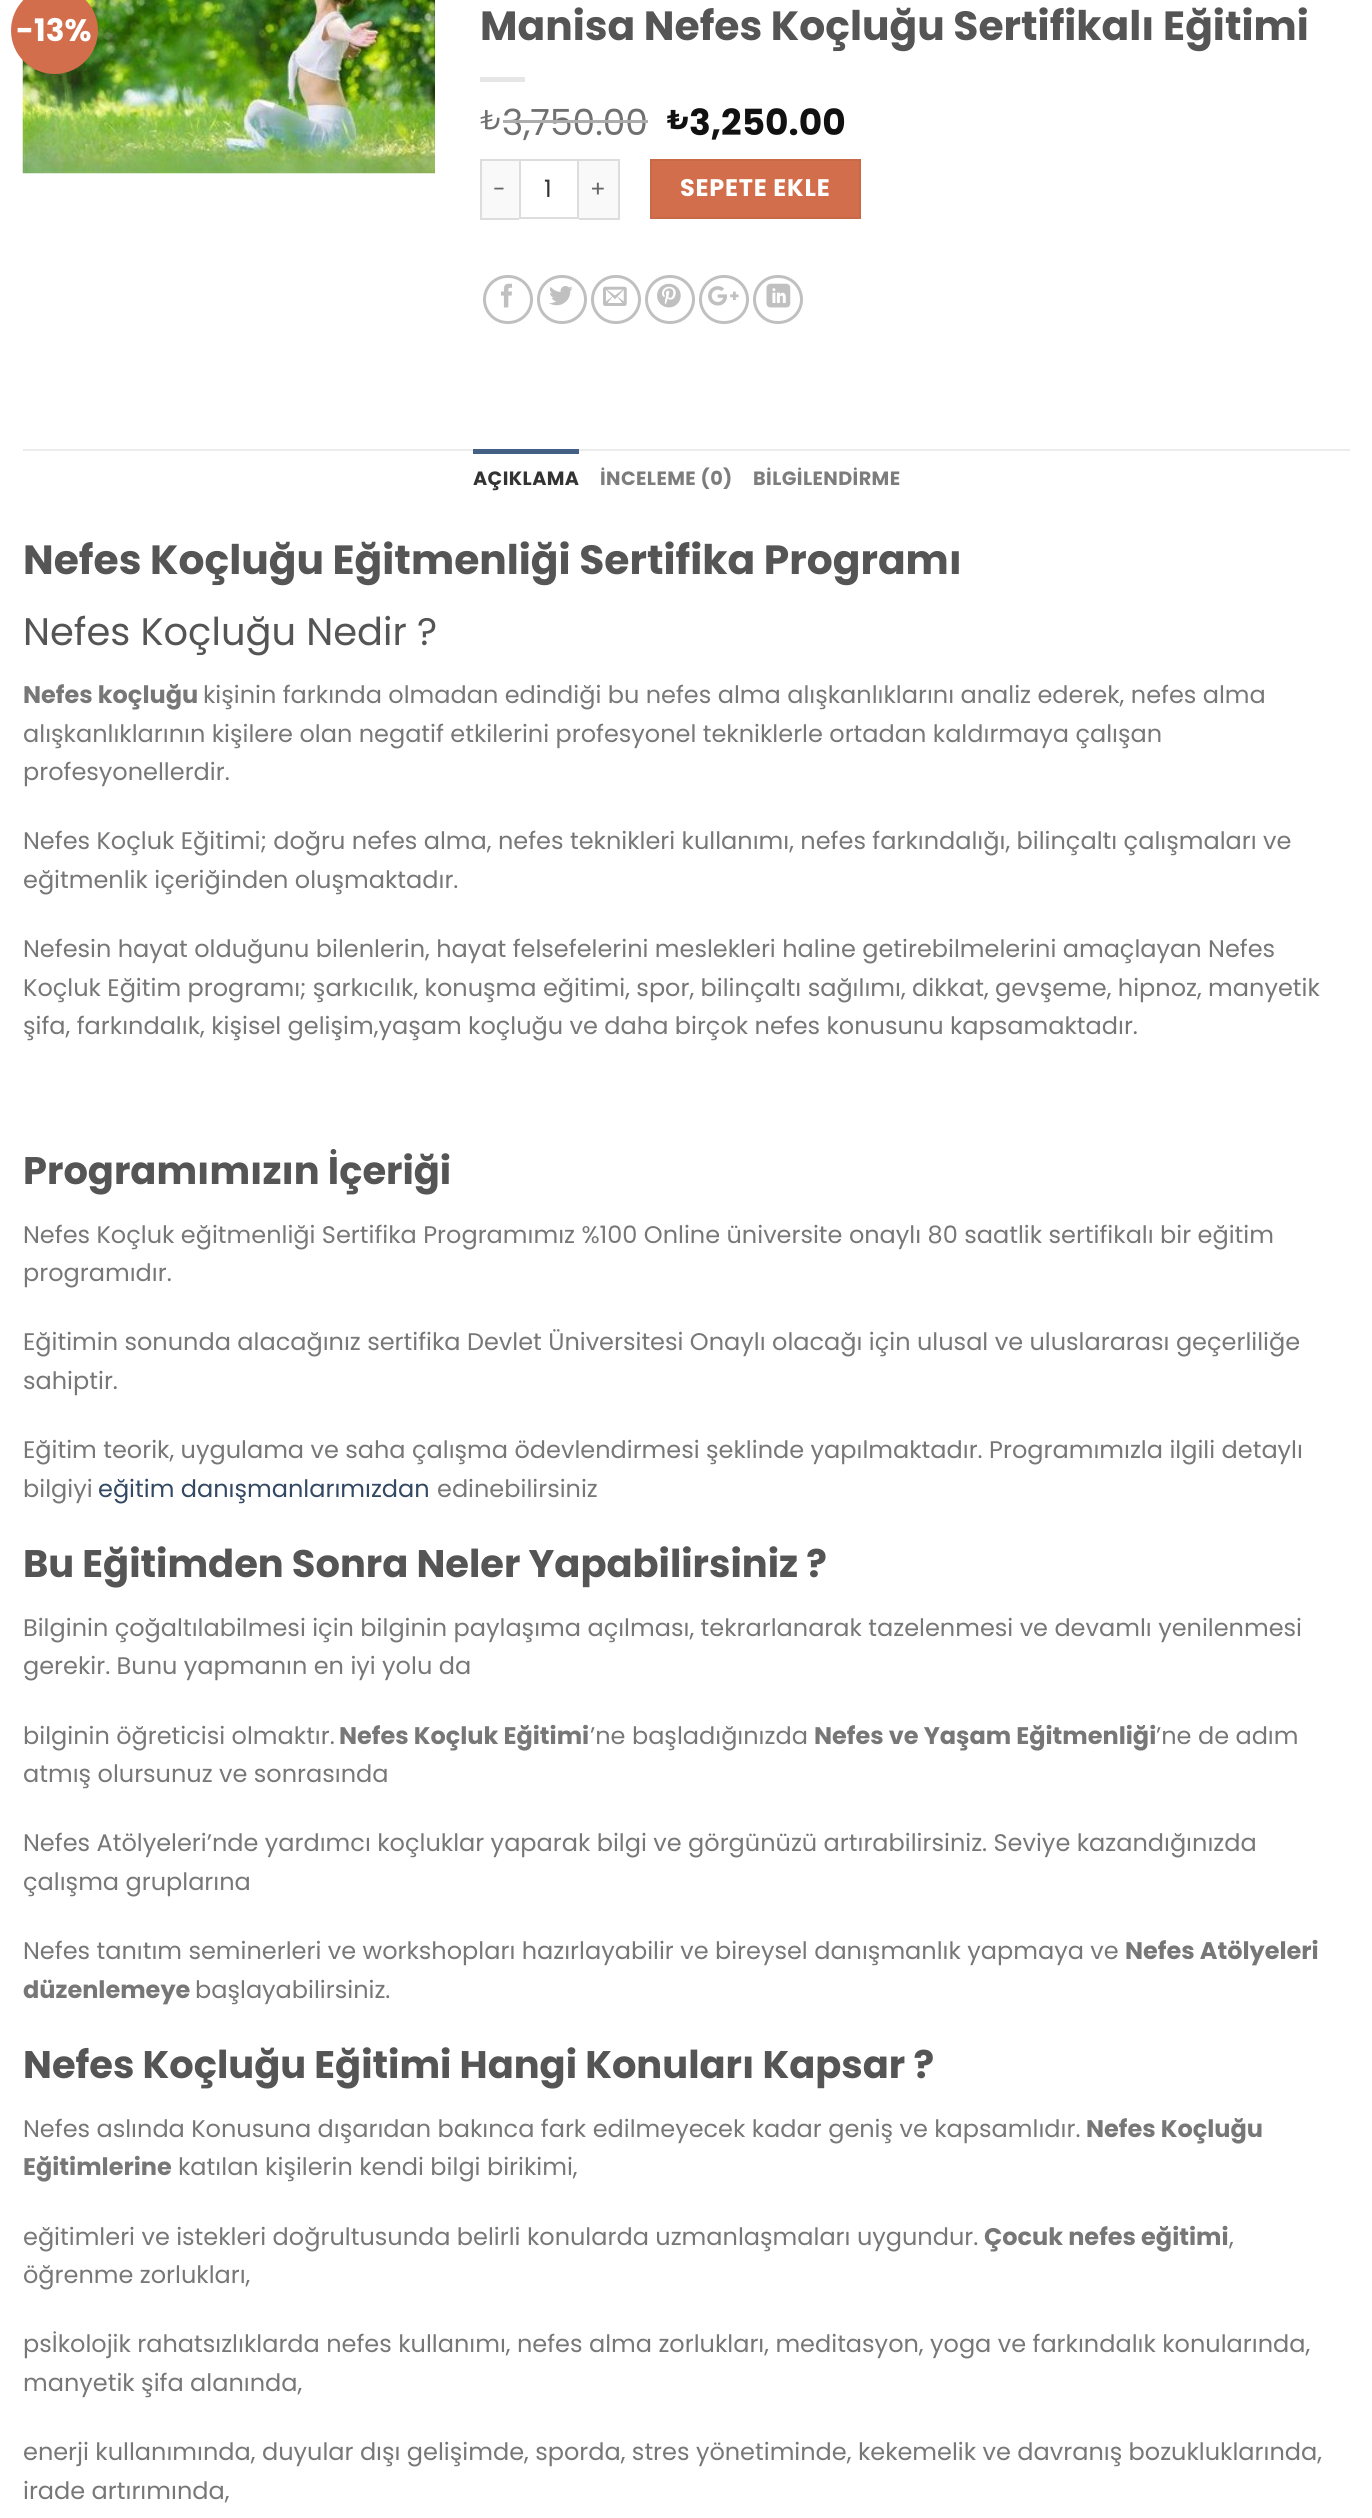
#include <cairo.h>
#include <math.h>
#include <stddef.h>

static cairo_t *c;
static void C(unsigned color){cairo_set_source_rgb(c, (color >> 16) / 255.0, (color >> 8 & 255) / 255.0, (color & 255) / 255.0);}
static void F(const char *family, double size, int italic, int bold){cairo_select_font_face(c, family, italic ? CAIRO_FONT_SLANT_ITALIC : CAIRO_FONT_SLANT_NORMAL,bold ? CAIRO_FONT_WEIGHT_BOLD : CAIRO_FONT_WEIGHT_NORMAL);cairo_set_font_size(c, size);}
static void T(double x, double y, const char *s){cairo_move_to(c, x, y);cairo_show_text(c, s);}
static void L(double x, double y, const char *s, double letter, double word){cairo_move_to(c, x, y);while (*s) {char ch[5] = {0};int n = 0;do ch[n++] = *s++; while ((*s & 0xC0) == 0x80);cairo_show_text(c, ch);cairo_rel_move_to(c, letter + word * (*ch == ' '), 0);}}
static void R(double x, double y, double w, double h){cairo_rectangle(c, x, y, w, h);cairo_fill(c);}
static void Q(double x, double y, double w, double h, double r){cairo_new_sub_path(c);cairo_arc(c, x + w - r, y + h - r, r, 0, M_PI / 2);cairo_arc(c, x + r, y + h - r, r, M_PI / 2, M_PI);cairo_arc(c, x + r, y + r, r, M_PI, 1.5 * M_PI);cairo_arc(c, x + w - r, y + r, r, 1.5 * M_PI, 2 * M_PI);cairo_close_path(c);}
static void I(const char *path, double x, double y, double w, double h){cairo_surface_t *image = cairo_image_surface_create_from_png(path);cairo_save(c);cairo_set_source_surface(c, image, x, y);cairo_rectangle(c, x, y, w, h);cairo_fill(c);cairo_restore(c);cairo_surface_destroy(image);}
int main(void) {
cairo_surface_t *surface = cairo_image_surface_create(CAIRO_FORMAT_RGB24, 1372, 2518);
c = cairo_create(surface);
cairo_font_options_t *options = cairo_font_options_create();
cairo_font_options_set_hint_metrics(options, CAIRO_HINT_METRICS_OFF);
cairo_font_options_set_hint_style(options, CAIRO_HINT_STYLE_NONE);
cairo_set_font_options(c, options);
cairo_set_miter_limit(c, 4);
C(0xffffff);
cairo_paint(c);
I("1.png",22,0,413,174);
C(0xd26e4b);
cairo_arc(c,54.5,30.5,43.5,0,2 * M_PI);
cairo_fill(c);
F("Poppins",31,0,1);
C(0xffffff);
T(16,41,"-13%");
F("Poppins",40.8,0,1);
C(0x555555);
T(480,40,"Manisa Nefes Koçluğu Sertifikalı Eğitimi");
C(0xe6e6e6);
R(480,77,45,5);
F("Poppins",27,0,0);
C(0x707070);
T(480,129,"₺");
F("Poppins",36,0,0);
T(502,135,"3,750.00");
C(0xadadad);
R(503,120,145,3);
F("Poppins",27,0,1);
C(0x111111);
T(667,129,"₺");
F("Poppins",36,0,1);
T(689,135,"3,250.00");
C(0xf9f9f9);
R(482,161,37,57);
C(0xdddddd);
R(480,159,39,2);
R(480,218,39,2);
R(480,159,2,60);
F("Poppins",23,0,0);
C(0x666666);
L(493,197,"-",1,0);
cairo_rectangle(c,520,160,58,58);
C(0xdddddd);
cairo_stroke(c);
F("Poppins",24,0,0);
C(0x333333);
T(544,197,"1");
C(0xf9f9f9);
R(579,161,39,57);
C(0xdddddd);
R(579,159,41,2);
R(618,159,2,60);
R(579,218,41,2);
F("Poppins",23,0,0);
C(0x666666);
L(590,197,"+",1,0);
C(0xd26e4b);
cairo_rectangle(c,651,160,209,58);
cairo_fill_preserve(c);
C(0xc86947);
cairo_stroke(c);
F("Poppins",24,0,1);
C(0xffffff);
L(680,196,"SEPETE EKLE",.75,0);
Q(484.5,276.5,47,46,23);
C(0xc0c0c0);
cairo_set_line_width(c,3);
cairo_stroke(c);
I("2.png",501,283,11,25);
Q(538.5,276.5,47,46,23);
cairo_stroke(c);
I("3.png",549,286,24,20);
Q(592.5,276.5,47,46,23);
cairo_stroke(c);
I("4.png",603,286,24,20);
Q(646.5,276.5,47,46,23);
cairo_stroke(c);
I("5.png",657,283,24,25);
Q(700.5,276.5,47,46,23);
cairo_stroke(c);
I("6.png",708,286,31,20);
Q(754.5,276.5,47,46,23);
cairo_stroke(c);
I("7.png",766,283,25,25);
C(0xececec);
R(23,449,1327,2);
C(0x446084);
R(473,449,106,5);
F("Poppins",19.25,0,1);
C(0x333333);
L(473,485,"AÇIKLAMA",.4,0);
C(0x7d7d7d);
L(600,485,"İNCELEME (0)",.4,0);
L(753,485,"BİLGİLENDİRME",.4,0);
F("Poppins",40.8,0,1);
C(0x555555);
T(23,574,"Nefes Koçluğu Eğitmenliği Sertifika Programı");
F("Poppins",38.4,0,0);
T(23,645,"Nefes Koçluğu Nedir ?");
F("Poppins",24,0,1);
C(0x777777);
T(23,703,"Nefes koçluğu");
F("Poppins",24,0,0);
T(203,703,"kişinin farkında olmadan edindiği bu nefes alma alışkanlıklarını analiz ederek, nefes alma");
T(23,742,"alışkanlıklarının kişilere olan negatif etkilerini profesyonel tekniklerle ortadan kaldırmaya çalışan");
T(23,780,"profesyonellerdir.");
T(23,849,"Nefes Koçluk Eğitimi; doğru nefes alma, nefes teknikleri kullanımı, nefes farkındalığı, bilinçaltı çalışmaları ve");
T(23,888,"eğitmenlik içeriğinden oluşmaktadır.");
T(23,957,"Nefesin hayat olduğunu bilenlerin, hayat felsefelerini meslekleri haline getirebilmelerini amaçlayan Nefes");
T(23,996,"Koçluk Eğitim programı; şarkıcılık, konuşma eğitimi, spor, bilinçaltı sağılımı, dikkat, gevşeme, hipnoz, manyetik");
T(23,1034,"şifa, farkındalık, kişisel gelişim,yaşam koçluğu ve daha birçok nefes konusunu kapsamaktadır.");
F("Poppins",38.4,0,1);
C(0x555555);
T(23,1184,"Programımızın İçeriği");
F("Poppins",24,0,0);
C(0x777777);
T(23,1243,"Nefes Koçluk eğitmenliği Sertifika Programımız %100 Online üniversite onaylı 80 saatlik sertifikalı bir eğitim");
T(23,1281,"programıdır.");
T(23,1350,"Eğitimin sonunda alacağınız sertifika Devlet Üniversitesi Onaylı olacağı için ulusal ve uluslararası geçerliliğe");
T(23,1389,"sahiptir.");
T(23,1458,"Eğitim teorik, uygulama ve saha çalışma ödevlendirmesi şeklinde yapılmaktadır. Programımızla ilgili detaylı");
T(23,1497,"bilgiyi");
C(0x334862);
T(98,1497,"eğitim danışmanlarımızdan");
C(0x777777);
T(437,1497,"edinebilirsiniz");
F("Poppins",38.4,0,1);
C(0x555555);
T(23,1577,"Bu Eğitimden Sonra Neler Yapabilirsiniz ?");
F("Poppins",24,0,0);
C(0x777777);
T(23,1636,"Bilginin çoğaltılabilmesi için bilginin paylaşıma açılması, tekrarlanarak tazelenmesi ve devamlı yenilenmesi");
T(23,1674,"gerekir. Bunu yapmanın en iyi yolu da");
T(23,1744,"bilginin öğreticisi olmaktır.");
F("Poppins",24,0,1);
T(339,1744,"Nefes Koçluk Eğitimi");
F("Poppins",24,0,0);
T(590,1744,"’ne başladığınızda");
F("Poppins",24,0,1);
T(814,1744,"Nefes ve Yaşam Eğitmenliği");
F("Poppins",24,0,0);
T(1156,1744,"’ne de adım");
T(23,1782,"atmış olursunuz ve sonrasında");
T(23,1851,"Nefes Atölyeleri’nde yardımcı koçluklar yaparak bilgi ve görgünüzü artırabilirsiniz. Seviye kazandığınızda");
T(23,1890,"çalışma gruplarına");
T(23,1959,"Nefes tanıtım seminerleri ve workshopları hazırlayabilir ve bireysel danışmanlık yapmaya ve");
F("Poppins",24,0,1);
T(1125,1959,"Nefes Atölyeleri");
T(23,1998,"düzenlemeye");
F("Poppins",24,0,0);
T(195,1998,"başlayabilirsiniz.");
F("Poppins",38.4,0,1);
C(0x555555);
T(23,2078,"Nefes Koçluğu Eğitimi Hangi Konuları Kapsar ?");
F("Poppins",24,0,0);
C(0x777777);
T(23,2137,"Nefes aslında Konusuna dışarıdan bakınca fark edilmeyecek kadar geniş ve kapsamlıdır.");
F("Poppins",24,0,1);
T(1086,2137,"Nefes Koçluğu");
T(23,2175,"Eğitimlerine");
F("Poppins",24,0,0);
T(178,2175,"katılan kişilerin kendi bilgi birikimi,");
T(23,2245,"eğitimleri ve istekleri doğrultusunda belirli konularda uzmanlaşmaları uygundur.");
F("Poppins",24,0,1);
T(984,2245,"Çocuk nefes eğitimi");
F("Poppins",24,0,0);
T(1229,2245,",");
T(23,2283,"öğrenme zorlukları,");
T(23,2352,"psİkolojik rahatsızlıklarda nefes kullanımı, nefes alma zorlukları, meditasyon, yoga ve farkındalık konularında,");
T(23,2391,"manyetik şifa alanında,");
T(23,2460,"enerji kullanımında, duyular dışı gelişimde, sporda, stres yönetiminde, kekemelik ve davranış bozukluklarında,");
T(23,2499,"irade artırımında,");
cairo_surface_write_to_png(surface, "o.png");
cairo_font_options_destroy(options);
cairo_destroy(c);
cairo_surface_destroy(surface);
return 0;
}
